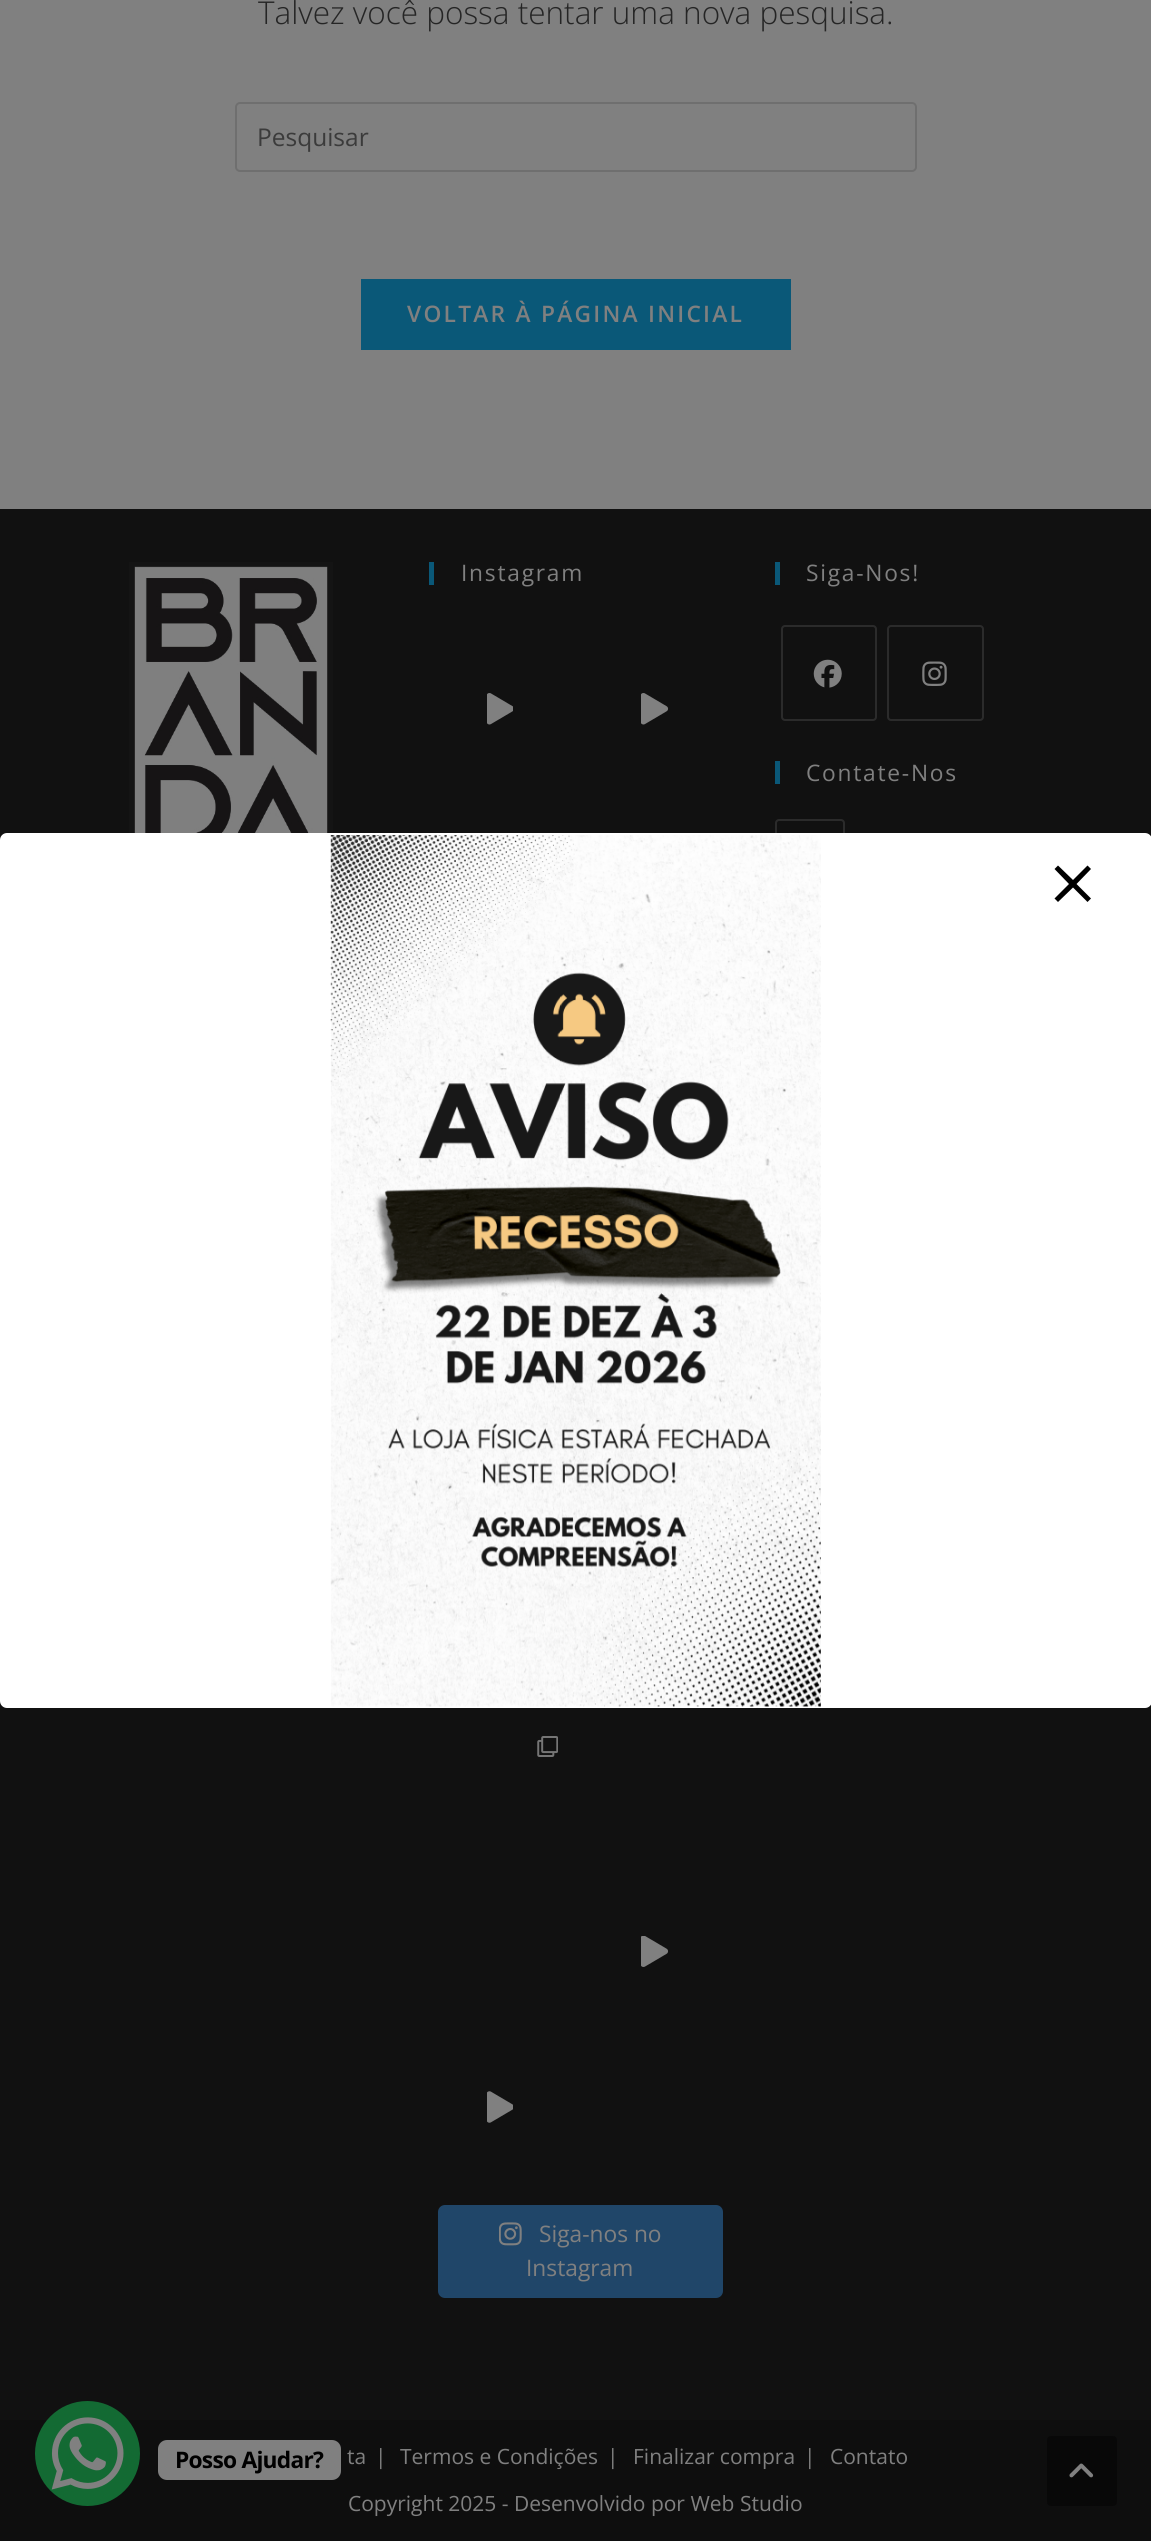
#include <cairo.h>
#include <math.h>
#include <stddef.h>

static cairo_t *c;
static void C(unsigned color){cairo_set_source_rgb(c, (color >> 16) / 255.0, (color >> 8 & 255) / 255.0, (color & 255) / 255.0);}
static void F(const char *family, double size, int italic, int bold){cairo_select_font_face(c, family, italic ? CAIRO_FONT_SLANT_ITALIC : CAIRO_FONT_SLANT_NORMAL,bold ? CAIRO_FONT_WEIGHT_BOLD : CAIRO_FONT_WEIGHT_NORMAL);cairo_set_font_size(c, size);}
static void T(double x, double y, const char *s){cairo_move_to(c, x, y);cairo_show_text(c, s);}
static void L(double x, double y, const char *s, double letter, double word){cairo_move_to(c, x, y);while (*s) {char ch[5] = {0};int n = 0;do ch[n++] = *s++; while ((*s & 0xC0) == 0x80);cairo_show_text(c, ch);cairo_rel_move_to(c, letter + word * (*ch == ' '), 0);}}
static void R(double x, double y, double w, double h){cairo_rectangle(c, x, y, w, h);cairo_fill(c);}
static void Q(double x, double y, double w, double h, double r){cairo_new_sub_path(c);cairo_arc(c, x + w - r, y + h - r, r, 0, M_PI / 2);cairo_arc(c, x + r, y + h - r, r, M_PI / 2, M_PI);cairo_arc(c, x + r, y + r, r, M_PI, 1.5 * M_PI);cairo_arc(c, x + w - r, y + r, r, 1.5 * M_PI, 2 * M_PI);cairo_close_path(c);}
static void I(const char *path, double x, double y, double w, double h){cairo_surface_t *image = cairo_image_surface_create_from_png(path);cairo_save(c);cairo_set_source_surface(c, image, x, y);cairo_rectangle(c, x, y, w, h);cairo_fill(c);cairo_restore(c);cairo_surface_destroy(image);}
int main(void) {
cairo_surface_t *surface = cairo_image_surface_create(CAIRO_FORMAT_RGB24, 1151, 2541);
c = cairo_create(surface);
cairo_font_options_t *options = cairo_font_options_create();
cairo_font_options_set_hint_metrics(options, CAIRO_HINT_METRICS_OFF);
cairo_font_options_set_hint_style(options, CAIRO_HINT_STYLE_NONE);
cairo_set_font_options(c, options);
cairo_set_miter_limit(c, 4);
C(0x808080);
cairo_paint(c);
F("Open Sans Light",31.5,0,0);
C(0x252525);
T(258,24,"Talvez você possa tentar uma nova pesquisa.");
Q(236,103,680,68,4);
C(0x6f6f6f);
cairo_stroke(c);
F("Open Sans",24.5,0,0);
C(0x3b3b3b);
T(257,146,"Pesquisar");
C(0x0a5878);
R(361,279,430,71);
F("Open Sans SemiBold",22.75,0,0);
C(0x808080);
L(407,322,"VOLTAR À PÁGINA INICIAL",2.25,0);
C(0x111111);
R(0,509,1151,1911);
I("1.png",129,562,204,271);
C(0x0a5878);
R(429,562,5,23);
F("Open Sans",22.75,0,0);
C(0x808080);
L(461,581,"Instagram",1.75,0);
I("2.png",487,693,26,32);
I("3.png",641,693,28,32);
I("4.png",537,1736,21,21);
I("5.png",641,1936,28,31);
I("6.png",487,2091,26,32);
C(0x204669);
Q(438,2205,285,93,7);
cairo_fill(c);
I("7.png",499,2222,23,24);
C(0x808080);
T(539,2242,"Siga-nos no");
T(526,2276,"Instagram");
C(0x0a5878);
R(775,562,5,23);
C(0x808080);
L(806,581,"Siga-Nos!",1.75,0);
Q(782,626,94,94,3);
C(0x2b2b2b);
cairo_stroke(c);
I("8.png",813,659,29,29);
Q(888,626,95,94,3);
cairo_stroke(c);
I("9.png",922,661,25,25);
C(0x0a5878);
R(775,761,5,23);
C(0x808080);
L(806,781,"Contate-Nos",1.75,0);
Q(776,820,68,68,3);
C(0x2b2b2b);
cairo_stroke(c);
C(0x0e0e0e);
R(0,2420,1151,121);
F("Open Sans",21,0,0);
C(0x808080);
T(347,2464,"ta");
T(375,2464,"|");
T(400,2464,"Termos e Condições");
T(607,2464,"|");
T(633,2464,"Finalizar compra");
T(804,2464,"|");
T(830,2464,"Contato");
T(348,2511,"Copyright 2025 - Desenvolvido por Web Studio");
C(0xffffff);
Q(1,834,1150,873,6);
cairo_fill_preserve(c);
cairo_stroke(c);
I("10.png",330,835,491,872);
C(0x000000);
cairo_new_path(c);
cairo_move_to(c,1091,869);
cairo_line_to(c,1087.5,865.5);
cairo_line_to(c,1073,880);
cairo_line_to(c,1058,865.5);
cairo_line_to(c,1054.5,869);
cairo_line_to(c,1069,884);
cairo_line_to(c,1054.5,898.5);
cairo_line_to(c,1058,902);
cairo_line_to(c,1073,887.5);
cairo_line_to(c,1087.5,902);
cairo_line_to(c,1091,898.5);
cairo_line_to(c,1076.5,884);
cairo_close_path(c);
cairo_fill(c);
C(0x136a33);
cairo_arc(c,87.5,2453.5,52.5,0,2 * M_PI);
cairo_fill(c);
I("11.png",51,2417,73,73);
C(0x808080);
Q(158,2440,183,40,9);
cairo_fill(c);
F("Open Sans",22.75,0,1);
C(0x000000);
L(175,2468,"Posso Ajudar?",-.75,0);
C(0x080808);
Q(1047,2436,70,70,4);
cairo_fill(c);
I("12.png",1069,2463,25,15);
cairo_surface_write_to_png(surface, "o.png");
cairo_font_options_destroy(options);
cairo_destroy(c);
cairo_surface_destroy(surface);
return 0;
}
